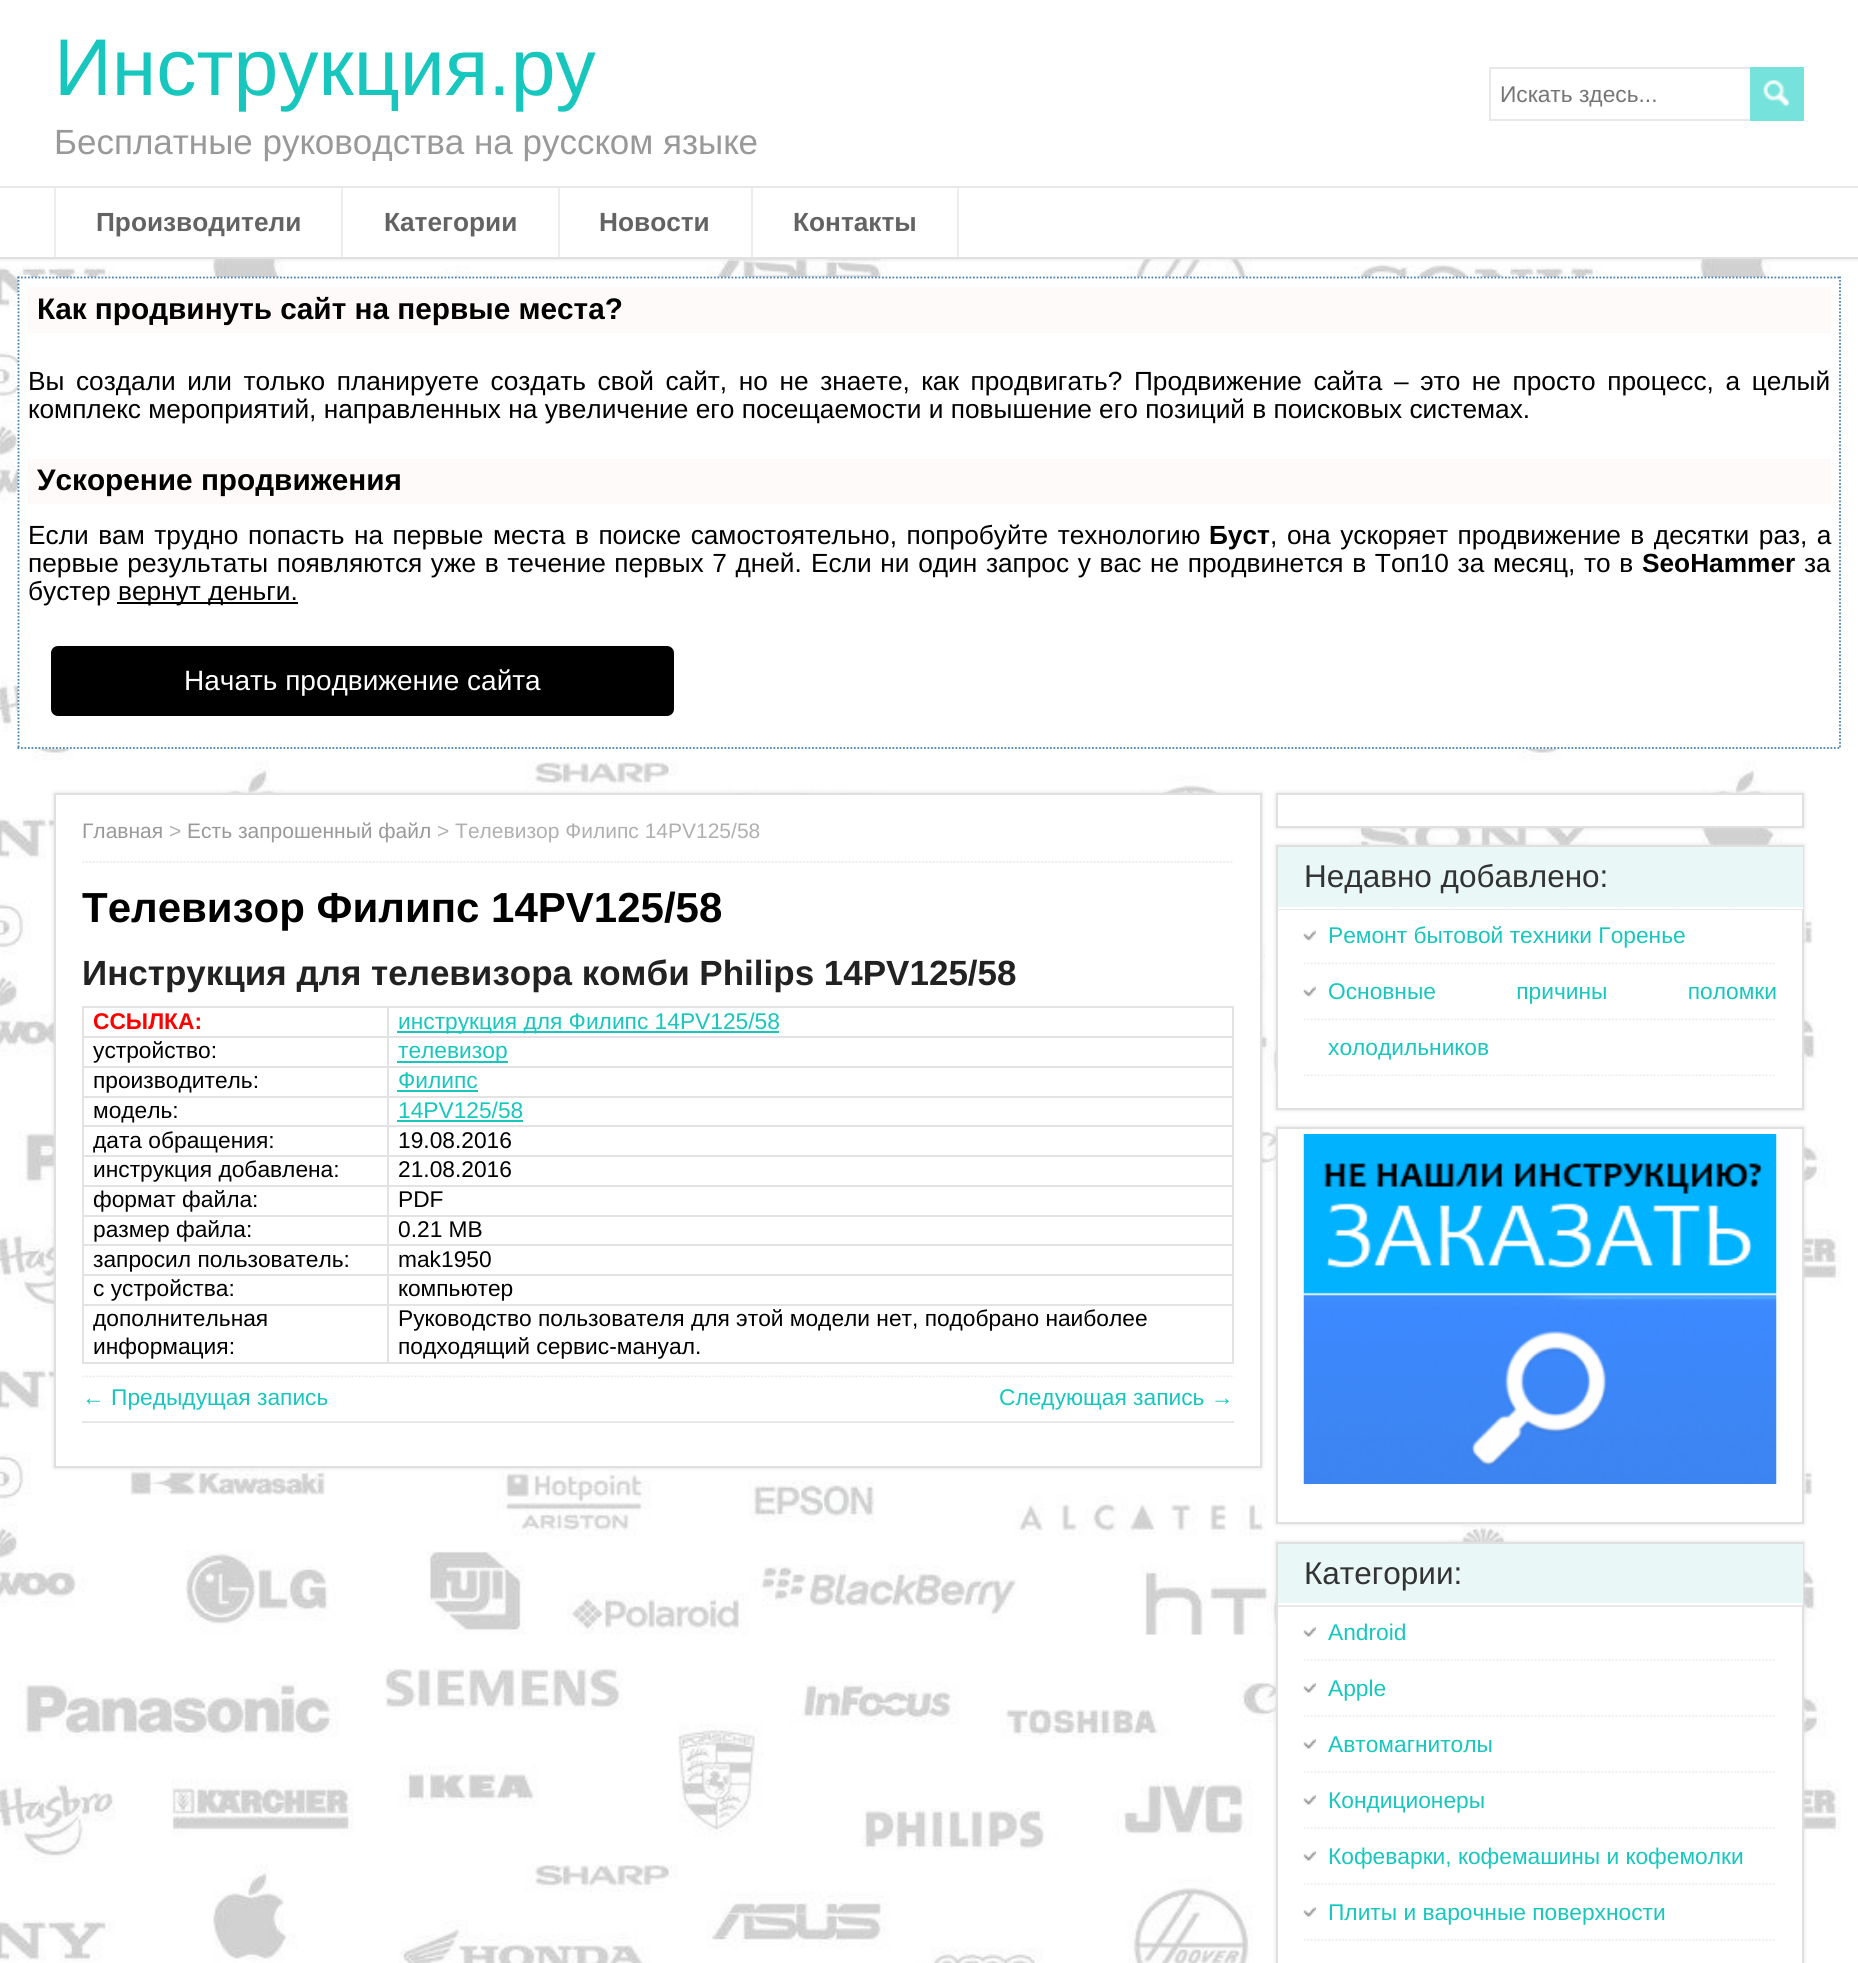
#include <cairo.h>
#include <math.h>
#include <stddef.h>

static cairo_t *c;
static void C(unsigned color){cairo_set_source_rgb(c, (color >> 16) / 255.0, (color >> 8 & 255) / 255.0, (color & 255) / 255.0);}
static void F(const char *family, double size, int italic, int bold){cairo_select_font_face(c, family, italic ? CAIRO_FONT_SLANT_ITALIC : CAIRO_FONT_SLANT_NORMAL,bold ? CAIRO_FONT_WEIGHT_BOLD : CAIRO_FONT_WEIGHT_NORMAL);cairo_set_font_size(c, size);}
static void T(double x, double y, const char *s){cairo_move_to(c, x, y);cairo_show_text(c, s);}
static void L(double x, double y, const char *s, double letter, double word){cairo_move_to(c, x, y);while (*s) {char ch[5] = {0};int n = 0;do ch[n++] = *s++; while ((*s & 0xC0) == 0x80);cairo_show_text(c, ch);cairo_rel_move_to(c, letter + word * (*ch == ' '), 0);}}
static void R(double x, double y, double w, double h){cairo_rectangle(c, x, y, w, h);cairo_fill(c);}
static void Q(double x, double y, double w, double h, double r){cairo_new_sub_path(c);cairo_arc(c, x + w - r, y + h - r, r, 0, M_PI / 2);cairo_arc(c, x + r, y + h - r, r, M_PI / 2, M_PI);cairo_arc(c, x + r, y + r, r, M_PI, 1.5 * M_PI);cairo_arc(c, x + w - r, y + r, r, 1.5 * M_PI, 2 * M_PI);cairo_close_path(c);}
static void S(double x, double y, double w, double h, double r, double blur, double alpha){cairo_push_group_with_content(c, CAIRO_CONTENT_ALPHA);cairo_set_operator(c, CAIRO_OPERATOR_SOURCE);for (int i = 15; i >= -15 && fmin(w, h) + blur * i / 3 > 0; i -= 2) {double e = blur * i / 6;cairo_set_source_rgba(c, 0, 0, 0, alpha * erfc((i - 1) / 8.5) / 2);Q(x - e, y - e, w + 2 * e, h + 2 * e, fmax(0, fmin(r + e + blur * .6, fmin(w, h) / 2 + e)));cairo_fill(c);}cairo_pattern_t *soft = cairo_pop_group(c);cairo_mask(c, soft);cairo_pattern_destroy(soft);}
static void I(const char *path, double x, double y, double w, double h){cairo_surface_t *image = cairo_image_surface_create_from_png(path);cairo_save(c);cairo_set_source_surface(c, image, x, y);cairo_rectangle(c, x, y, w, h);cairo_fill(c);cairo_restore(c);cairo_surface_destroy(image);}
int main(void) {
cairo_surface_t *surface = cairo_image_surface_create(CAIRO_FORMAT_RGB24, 1858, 1963);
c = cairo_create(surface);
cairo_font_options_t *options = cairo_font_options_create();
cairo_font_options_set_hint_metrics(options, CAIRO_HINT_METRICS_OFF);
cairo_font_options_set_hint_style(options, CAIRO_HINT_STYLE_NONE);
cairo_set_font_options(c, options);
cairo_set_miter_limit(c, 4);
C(0xffffff);
cairo_paint(c);
I("1.png",0,259,1858,1704);
C(0xdddddd);
S(0,0,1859,259,0,2,1);
C(0xffffff);
R(0,0,1858,257);
C(0xe0e0e0);
R(0,257,1858,2);
F("Liberation Sans",80.5,0,0);
C(0x17c7bd);
T(54,95,"Инструкция.ру");
cairo_rectangle(c,1490,68,313,52);
C(0xe8e8e8);
cairo_stroke(c);
F("Liberation Sans",22.75,0,0);
C(0x757575);
T(1500,102,"Искать здесь...");
C(0x75e3db);
R(1750,67,54,54);
I("2.png",1763,80,27,27);
F("Liberation Sans",35,0,0);
C(0x999999);
T(54,154,"Бесплатные руководства на русском языке");
C(0xe8e8e8);
R(0,186,1858,2);
C(0xededed);
R(54,187,2,70);
R(341,187,2,70);
F("Liberation Sans",26.25,0,1);
C(0x636363);
T(96,231,"Производители");
C(0xededed);
R(558,187,2,70);
C(0x636363);
T(384,231,"Категории");
C(0xededed);
R(751,187,2,70);
C(0x636363);
T(599,231,"Новости");
C(0xededed);
R(957,187,2,70);
C(0x636363);
T(793,231,"Контакты");
C(0xffffff);
R(18,277,1823,472);
cairo_new_path(c);
cairo_move_to(c,17.5,277.5);
cairo_line_to(c,1841,277.5);
C(0x4682b4);
cairo_set_line_width(c,1.8);
cairo_set_dash(c,(double[]){1.75,1.75},2,0);
cairo_stroke(c);
cairo_new_path(c);
cairo_move_to(c,1840,276.5);
cairo_line_to(c,1840,749);
cairo_stroke(c);
cairo_new_path(c);
cairo_move_to(c,17.5,748);
cairo_line_to(c,1841,748);
cairo_stroke(c);
cairo_new_path(c);
cairo_move_to(c,18.5,276.5);
cairo_line_to(c,18.5,749);
cairo_stroke(c);
C(0xfffafa);
R(28,287,1803,46);
F("Liberation Sans",29.75,0,1);
C(0x000000);
T(37,319,"Как продвинуть сайт на первые места?");
F("Liberation Sans",26.25,0,0);
L(28,390,"Вы создали или только планируете создать свой сайт, но не знаете, как продвигать? Продвижение сайта – это не просто процесс, а целый",0,4.3);
T(28,418,"комплекс мероприятий, направленных на увеличение его посещаемости и повышение его позиций в поисковых системах.");
C(0xfffafa);
R(28,459,1803,45);
F("Liberation Sans",29.75,0,1);
C(0x000000);
T(37,490,"Ускорение продвижения");
F("Liberation Sans",26.25,0,0);
L(28,544,"Если вам трудно попасть на первые места в поиске самостоятельно, попробуйте технологию",0,2.25);
F("Liberation Sans",26.25,0,1);
T(1209,544,"Буст");
F("Liberation Sans",26.25,0,0);
T(1270,544,",");
L(1287,544,"она ускоряет продвижение в десятки раз, а",0,2.25);
L(28,572,"первые результаты появляются уже в течение первых 7 дней.",0,1.25);
L(811,572,"Если ни один запрос у вас не продвинется в Топ10 за месяц, то в",0,1.4);
F("Liberation Sans",26.25,0,1);
T(1642,572,"SeoHammer");
F("Liberation Sans",26.25,0,0);
T(1804,572,"за");
T(28,600,"бустер");
R(117,602,181,2);
T(118,600,"вернут деньги.");
Q(50,645,625,72,8);
cairo_fill_preserve(c);
C(0xffffff);
cairo_set_line_width(c,2);
cairo_set_dash(c,NULL,0,0);
cairo_stroke(c);
F("Liberation Sans",28,0,0);
T(184,690,"Начать продвижение сайта");
C(0xdddddd);
S(54,793,1208,675,0,2,1);
C(0xffffff);
cairo_rectangle(c,55,794,1206,673);
cairo_fill_preserve(c);
C(0xe0e0e0);
cairo_stroke(c);
I("3.png",82,861,1152,2);
F("Liberation Sans",21,0,0);
C(0x999999);
T(82,838,"Главная");
C(0xb0b0b0);
T(169,838,">");
C(0x999999);
T(187,838,"Есть запрошенный файл");
C(0xb0b0b0);
T(437,838,"> Телевизор Филипс 14PV125/58");
F("Liberation Sans",42,0,1);
C(0x000000);
T(82,922,"Телевизор Филипс 14PV125/58");
F("Liberation Sans",35,0,1);
C(0x222222);
T(82,985,"Инструкция для телевизора комби Philips 14PV125/58");
C(0xe3e3e3);
R(82,1006,1152,2);
R(1232,1006,2,357);
R(82,1362,1152,2);
R(82,1006,2,357);
F("Liberation Sans",22.75,0,1);
C(0xff0000);
T(93,1029,"ССЫЛКА:");
C(0xe3e3e3);
R(387,1036,847,2);
R(387,1066,847,2);
R(387,1096,847,2);
R(387,1125,847,2);
R(387,1155,847,2);
R(387,1185,847,2);
R(387,1215,847,2);
R(387,1244,847,2);
R(387,1274,847,2);
R(387,1304,847,2);
R(387,1304,2,59);
R(82,1304,307,2);
R(387,1274,2,32);
R(82,1274,307,2);
R(387,1244,2,32);
R(82,1244,307,2);
R(387,1215,2,31);
R(82,1215,307,2);
R(387,1185,2,31);
R(82,1185,307,2);
R(387,1155,2,32);
R(82,1155,307,2);
R(387,1125,2,32);
R(82,1125,307,2);
R(387,1096,2,31);
R(82,1096,307,2);
R(387,1066,2,31);
R(82,1066,307,2);
R(387,1036,2,32);
R(82,1036,307,2);
R(387,1006,2,32);
C(0x17c7bd);
R(397,1031,382,2);
F("Liberation Sans",22.75,0,0);
T(398,1029,"инструкция для Филипс 14PV125/58");
C(0x000000);
T(93,1058,"устройство:");
C(0x17c7bd);
R(397,1061,111,2);
T(398,1058,"телевизор");
C(0x000000);
T(93,1088,"производитель:");
C(0x17c7bd);
T(398,1088,"Филипс");
R(397,1090,81,2);
C(0x000000);
T(93,1118,"модель:");
C(0x17c7bd);
T(398,1118,"14PV125/58");
R(397,1120,126,2);
C(0x000000);
T(93,1148,"дата обращения:");
T(398,1148,"19.08.2016");
T(93,1177,"инструкция добавлена:");
T(398,1177,"21.08.2016");
T(93,1207,"формат файла:");
T(398,1207,"PDF");
T(93,1237,"размер файла:");
T(398,1237,"0.21 MB");
T(93,1267,"запросил пользователь:");
T(398,1267,"mak1950");
T(93,1296,"с устройства:");
T(398,1296,"компьютер");
T(93,1326,"дополнительная");
T(93,1354,"информация:");
T(398,1326,"Руководство пользователя для этой модели нет, подобрано наиболее");
T(398,1354,"подходящий сервис-мануал.");
I("4.png",82,1375,1152,3);
C(0xe8e8e8);
R(82,1421,1152,2);
C(0x17c7bd);
T(82,1405,"← Предыдущая запись");
T(999,1405,"Следующая запись →");
C(0xdddddd);
S(1276,793,528,35,0,2,1);
C(0xffffff);
cairo_rectangle(c,1277,794,526,33);
cairo_fill_preserve(c);
C(0xe0e0e0);
cairo_stroke(c);
C(0xdddddd);
S(1276,845,528,265,0,2,1);
C(0xffffff);
R(1278,910,524,198);
cairo_rectangle(c,1277,846,526,263);
C(0xe0e0e0);
cairo_stroke(c);
C(0xe8e8e8);
cairo_new_path(c);
cairo_move_to(c,1278,908);
cairo_line_to(c,1278,910);
cairo_line_to(c,1803,910);
cairo_line_to(c,1803,849);
cairo_line_to(c,1802,849);
cairo_line_to(c,1802,908);
cairo_close_path(c);
cairo_fill(c);
C(0xe9f8f7);
R(1278,847,525,60);
C(0xffffff);
R(1278,907,525,2);
F("Liberation Sans",31.5,0,0);
C(0x333333);
T(1304,887,"Недавно добавлено:");
I("5.png",1304,908,471,168);
I("6.png",1303,930,13,11);
F("Liberation Sans",22.75,0,0);
C(0x17c7bd);
T(1328,943,"Ремонт бытовой техники Горенье");
I("6.png",1303,986,13,11);
L(1328,999,"Основные причины поломки",0,74);
T(1328,1055,"холодильников");
C(0xdddddd);
S(1276,1127,528,397,0,2,1);
C(0xffffff);
cairo_rectangle(c,1277,1128,526,395);
cairo_fill_preserve(c);
C(0xe0e0e0);
cairo_stroke(c);
I("7.png",1303,1134,474,350);
C(0xdddddd);
S(1276,1542,528,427,0,2,1);
C(0xffffff);
R(1278,1607,524,356);
cairo_rectangle(c,1277,1543,526,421);
C(0xe0e0e0);
cairo_stroke(c);
C(0xe8e8e8);
cairo_new_path(c);
cairo_move_to(c,1278,1605);
cairo_line_to(c,1278,1607);
cairo_line_to(c,1803,1607);
cairo_line_to(c,1803,1545);
cairo_line_to(c,1802,1545);
cairo_line_to(c,1802,1605);
cairo_close_path(c);
cairo_fill(c);
C(0xe9f8f7);
R(1278,1544,525,59);
C(0xffffff);
R(1278,1603,525,2);
F("Liberation Sans",31.5,0,0);
C(0x333333);
T(1304,1584,"Категории:");
I("8.png",1304,1659,471,282);
I("9.png",1303,1627,13,10);
F("Liberation Sans",22.75,0,0);
C(0x17c7bd);
T(1328,1640,"Android");
I("9.png",1303,1683,13,10);
T(1328,1696,"Apple");
I("9.png",1303,1739,13,10);
T(1328,1752,"Автомагнитолы");
I("9.png",1303,1795,13,10);
T(1328,1808,"Кондиционеры");
I("10.png",1303,1851,13,10);
T(1328,1864,"Кофеварки, кофемашины и кофемолки");
I("11.png",1303,1907,13,10);
T(1328,1920,"Плиты и варочные поверхности");
cairo_surface_write_to_png(surface, "o.png");
cairo_font_options_destroy(options);
cairo_destroy(c);
cairo_surface_destroy(surface);
return 0;
}
